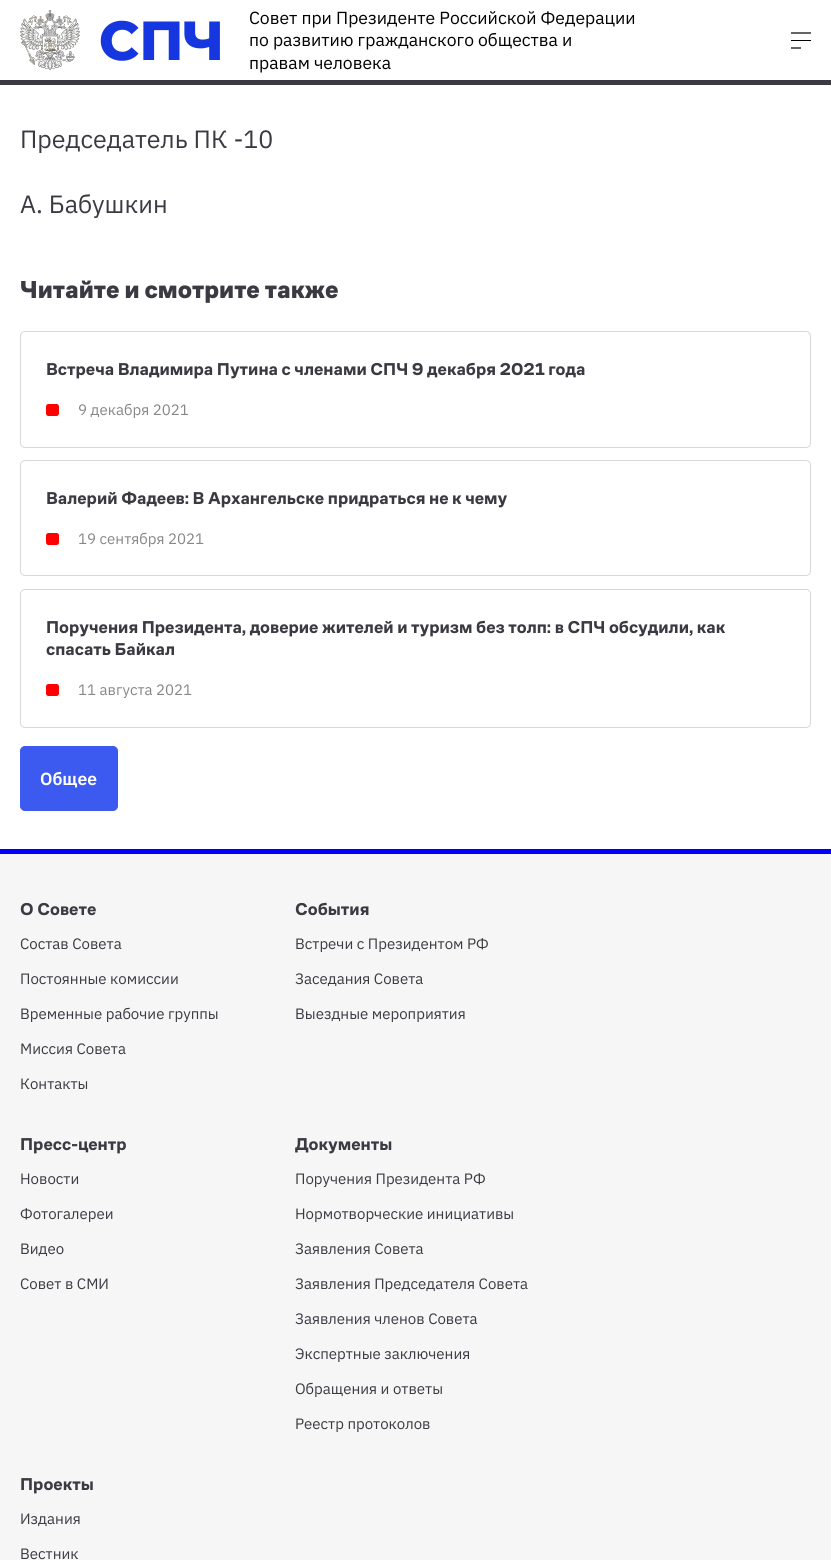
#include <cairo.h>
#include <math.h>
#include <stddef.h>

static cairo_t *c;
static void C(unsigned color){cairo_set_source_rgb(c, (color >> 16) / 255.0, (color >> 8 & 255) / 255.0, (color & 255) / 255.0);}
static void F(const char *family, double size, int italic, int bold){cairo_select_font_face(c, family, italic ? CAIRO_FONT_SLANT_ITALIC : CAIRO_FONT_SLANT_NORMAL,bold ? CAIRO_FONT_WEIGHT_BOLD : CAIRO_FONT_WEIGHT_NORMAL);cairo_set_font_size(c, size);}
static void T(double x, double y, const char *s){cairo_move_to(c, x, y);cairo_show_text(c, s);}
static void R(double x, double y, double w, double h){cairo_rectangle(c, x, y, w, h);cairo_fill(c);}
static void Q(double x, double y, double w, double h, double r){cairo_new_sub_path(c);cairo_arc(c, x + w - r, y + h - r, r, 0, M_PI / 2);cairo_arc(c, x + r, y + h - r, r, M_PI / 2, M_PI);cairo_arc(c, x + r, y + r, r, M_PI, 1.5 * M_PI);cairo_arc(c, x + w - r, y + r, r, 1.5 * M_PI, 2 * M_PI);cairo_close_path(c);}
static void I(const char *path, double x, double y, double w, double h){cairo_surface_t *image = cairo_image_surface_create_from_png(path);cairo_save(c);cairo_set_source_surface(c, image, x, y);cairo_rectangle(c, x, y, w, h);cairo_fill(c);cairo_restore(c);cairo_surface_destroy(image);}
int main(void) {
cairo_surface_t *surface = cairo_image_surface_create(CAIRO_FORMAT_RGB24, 831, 1560);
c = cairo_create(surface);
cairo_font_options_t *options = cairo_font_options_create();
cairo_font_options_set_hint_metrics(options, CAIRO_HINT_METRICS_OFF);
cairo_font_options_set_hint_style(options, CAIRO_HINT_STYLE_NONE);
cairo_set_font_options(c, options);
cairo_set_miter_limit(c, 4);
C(0xffffff);
cairo_paint(c);
I("1.png",20,10,60,60);
F("Montserrat Thin",55,0,0);
C(0x1637e0);
T(99,60,"СПЧ");
F("IBM Plex Sans",17.5,0,0);
C(0x000000);
T(249,24,"Совет при Президенте Российской Федерации");
T(249,46,"по развитию гражданского общества и");
T(249,69,"правам человека");
cairo_new_path(c);
cairo_move_to(c,811,33);
cairo_line_to(c,791,33);
cairo_set_line_width(c,1.2);
cairo_stroke(c);
R(791,40,20,1);
cairo_new_path(c);
cairo_move_to(c,801,48);
cairo_line_to(c,791,48);
cairo_stroke(c);
C(0x3b3a42);
R(0,80,831,5);
F("IBM Plex Sans",25,0,0);
T(20,148,"Председатель ПК -10");
T(20,213,"А. Бабушкин");
F("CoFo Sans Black",25,0,0);
T(20,298,"Читайте и смотрите также");
Q(20.5,331.5,790,116,4.5);
C(0xd8d8d9);
cairo_set_line_width(c,1);
cairo_stroke(c);
F("CoFo Sans",17.5,0,1);
C(0x3b3a42);
T(46,375,"Встреча Владимира Путина с членами СПЧ 9 декабря 2021 года");
C(0xff0000);
Q(46,404,13,12,2.5);
cairo_fill(c);
F("IBM Plex Sans",15,0,0);
C(0x878787);
T(78,415,"9 декабря 2021");
Q(20.5,460.5,790,115,4.5);
C(0xd8d8d9);
cairo_stroke(c);
F("CoFo Sans",17.5,0,1);
C(0x3b3a42);
T(46,504,"Валерий Фадеев: В Архангельске придраться не к чему");
C(0xff0000);
Q(46,533,13,12,2.5);
cairo_fill(c);
F("IBM Plex Sans",15,0,0);
C(0x878787);
T(78,544,"19 сентября 2021");
Q(20.5,589.5,790,138,4.5);
C(0xd8d8d9);
cairo_stroke(c);
F("CoFo Sans",17.5,0,1);
C(0x3b3a42);
T(46,633,"Поручения Президента, доверие жителей и туризм без толп: в СПЧ обсудили, как");
T(46,655,"спасать Байкал");
C(0xff0000);
Q(46,684,13,12,2.5);
cairo_fill(c);
F("IBM Plex Sans",15,0,0);
C(0x878787);
T(78,695,"11 августа 2021");
C(0x3d5af0);
Q(20.5,746.5,97,64,4.5);
cairo_fill_preserve(c);
cairo_stroke(c);
F("IBM Plex Sans SemiBold",17.5,0,0);
C(0xffffff);
T(40,785,"Общее");
C(0xf6f6f6);
R(0,854,831,706);
C(0x0000ff);
R(0,849,831,5);
F("CoFo Sans",17.5,0,1);
C(0x3b3a42);
T(20,915,"О Совете");
F("IBM Plex Sans",15,0,0);
T(20,949,"Состав Совета");
T(20,984,"Постоянные комиссии");
T(20,1019,"Временные рабочие группы");
T(20,1054,"Миссия Совета");
T(20,1089,"Контакты");
F("CoFo Sans",17.5,0,1);
T(295,915,"События");
F("IBM Plex Sans",15,0,0);
T(295,949,"Встречи с Президентом РФ");
T(295,984,"Заседания Совета");
T(295,1019,"Выездные мероприятия");
F("CoFo Sans",17.5,0,1);
T(20,1150,"Пресс-центр");
F("IBM Plex Sans",15,0,0);
T(20,1184,"Новости");
T(20,1219,"Фотогалереи");
T(20,1254,"Видео");
T(20,1289,"Совет в СМИ");
F("CoFo Sans",17.5,0,1);
T(295,1150,"Документы");
F("IBM Plex Sans",15,0,0);
T(295,1184,"Поручения Президента РФ");
T(295,1219,"Нормотворческие инициативы");
T(295,1254,"Заявления Совета");
T(295,1289,"Заявления Председателя Совета");
T(295,1324,"Заявления членов Совета");
T(295,1359,"Экспертные заключения");
T(295,1394,"Обращения и ответы");
T(295,1429,"Реестр протоколов");
F("CoFo Sans",17.5,0,1);
T(20,1490,"Проекты");
F("IBM Plex Sans",15,0,0);
T(20,1524,"Издания");
T(20,1559,"Вестник");
cairo_surface_write_to_png(surface, "o.png");
cairo_font_options_destroy(options);
cairo_destroy(c);
cairo_surface_destroy(surface);
return 0;
}
